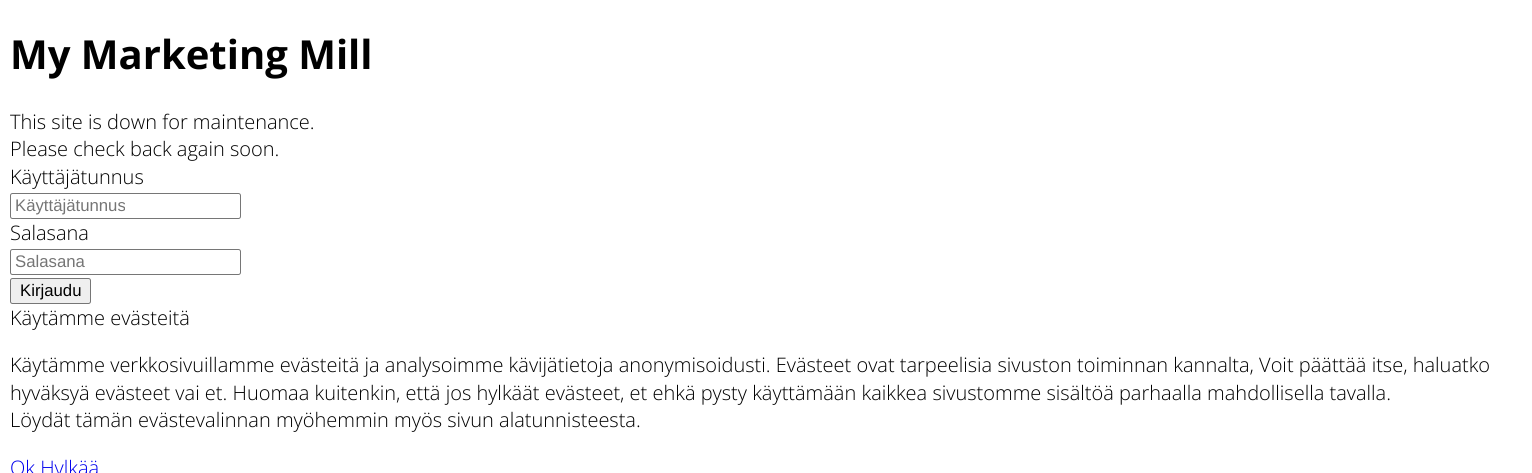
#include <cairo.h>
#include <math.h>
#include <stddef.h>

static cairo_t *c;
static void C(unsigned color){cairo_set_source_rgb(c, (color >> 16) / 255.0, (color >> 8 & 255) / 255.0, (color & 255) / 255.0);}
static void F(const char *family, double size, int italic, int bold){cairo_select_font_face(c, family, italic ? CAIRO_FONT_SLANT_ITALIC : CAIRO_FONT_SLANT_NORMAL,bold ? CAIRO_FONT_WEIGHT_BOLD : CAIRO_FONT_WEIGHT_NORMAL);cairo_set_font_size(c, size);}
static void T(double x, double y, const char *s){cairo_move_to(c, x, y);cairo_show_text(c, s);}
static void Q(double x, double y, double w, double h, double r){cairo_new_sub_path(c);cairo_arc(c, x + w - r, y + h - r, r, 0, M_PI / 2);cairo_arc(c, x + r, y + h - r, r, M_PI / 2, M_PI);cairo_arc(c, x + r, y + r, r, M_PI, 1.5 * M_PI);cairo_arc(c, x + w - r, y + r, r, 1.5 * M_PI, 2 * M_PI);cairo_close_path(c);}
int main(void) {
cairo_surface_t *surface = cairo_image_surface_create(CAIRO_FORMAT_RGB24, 1532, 473);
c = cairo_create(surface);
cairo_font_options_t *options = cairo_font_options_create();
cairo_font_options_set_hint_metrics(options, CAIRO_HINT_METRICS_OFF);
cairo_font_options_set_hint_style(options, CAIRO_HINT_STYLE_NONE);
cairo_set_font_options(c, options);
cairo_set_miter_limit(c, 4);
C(0xffffff);
cairo_paint(c);
F("Open Sans",40,0,1);
C(0x000000);
T(10,69,"My Marketing Mill");
F("Open Sans Light",20,0,0);
T(10,129,"This site is down for maintenance.");
T(10,156,"Please check back again soon.");
T(10,184,"Käyttäjätunnus");
Q(10.5,193.5,230,25,2);
C(0x767676);
cairo_set_line_width(c,1);
cairo_stroke(c);
F("Liberation Sans",16.75,0,0);
C(0x757575);
T(15,211,"Käyttäjätunnus");
F("Open Sans Light",20,0,0);
C(0x000000);
T(10,240,"Salasana");
Q(10.5,249.5,230,25,2);
C(0x767676);
cairo_stroke(c);
F("Liberation Sans",16.75,0,0);
C(0x757575);
T(15,267,"Salasana");
C(0xefefef);
Q(10.5,278.5,80,25,2);
cairo_fill_preserve(c);
C(0x767676);
cairo_stroke(c);
C(0x000000);
T(20,296,"Kirjaudu");
F("Open Sans Light",20,0,0);
T(10,325,"Käytämme evästeitä");
T(10,372,"Käytämme verkkosivuillamme evästeitä ja analysoimme kävijätietoja anonymisoidusti. Evästeet ovat tarpeelisia sivuston toiminnan kannalta, Voit päättää itse, haluatko");
T(10,400,"hyväksyä evästeet vai et. Huomaa kuitenkin, että jos hylkäät evästeet, et ehkä pysty käyttämään kaikkea sivustomme sisältöä parhaalla mahdollisella tavalla.");
T(10,427,"Löydät tämän evästevalinnan myöhemmin myös sivun alatunnisteesta.");
C(0x0000ee);
T(10,475,"Ok Hylkää");
cairo_surface_write_to_png(surface, "o.png");
cairo_font_options_destroy(options);
cairo_destroy(c);
cairo_surface_destroy(surface);
return 0;
}
